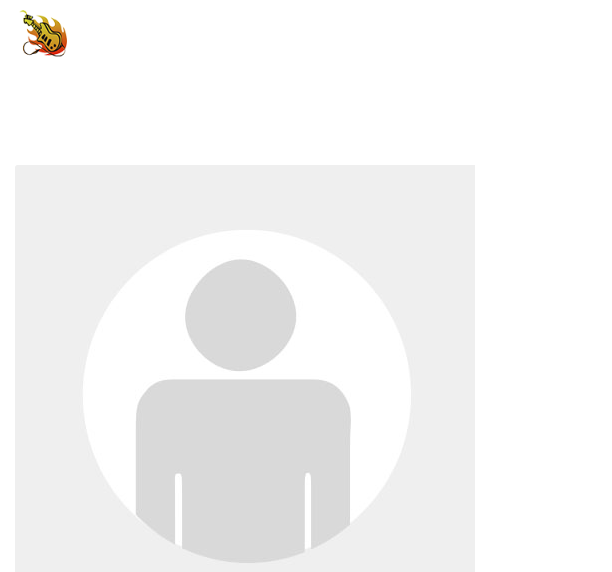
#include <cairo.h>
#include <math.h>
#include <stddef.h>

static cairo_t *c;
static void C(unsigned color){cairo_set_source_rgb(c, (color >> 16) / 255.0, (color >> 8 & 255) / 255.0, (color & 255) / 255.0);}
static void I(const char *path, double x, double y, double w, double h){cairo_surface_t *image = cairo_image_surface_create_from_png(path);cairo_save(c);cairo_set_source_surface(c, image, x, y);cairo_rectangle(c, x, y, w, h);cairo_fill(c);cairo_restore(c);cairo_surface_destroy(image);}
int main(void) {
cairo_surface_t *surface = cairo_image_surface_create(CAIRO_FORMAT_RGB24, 612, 572);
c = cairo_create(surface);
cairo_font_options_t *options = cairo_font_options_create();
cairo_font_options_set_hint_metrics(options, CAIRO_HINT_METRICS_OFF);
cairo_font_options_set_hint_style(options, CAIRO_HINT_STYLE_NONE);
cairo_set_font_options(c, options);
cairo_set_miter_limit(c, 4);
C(0xffffff);
cairo_paint(c);
I("1.png",19,10,48,47);
I("2.png",15,165,460,407);
cairo_surface_write_to_png(surface, "o.png");
cairo_font_options_destroy(options);
cairo_destroy(c);
cairo_surface_destroy(surface);
return 0;
}
